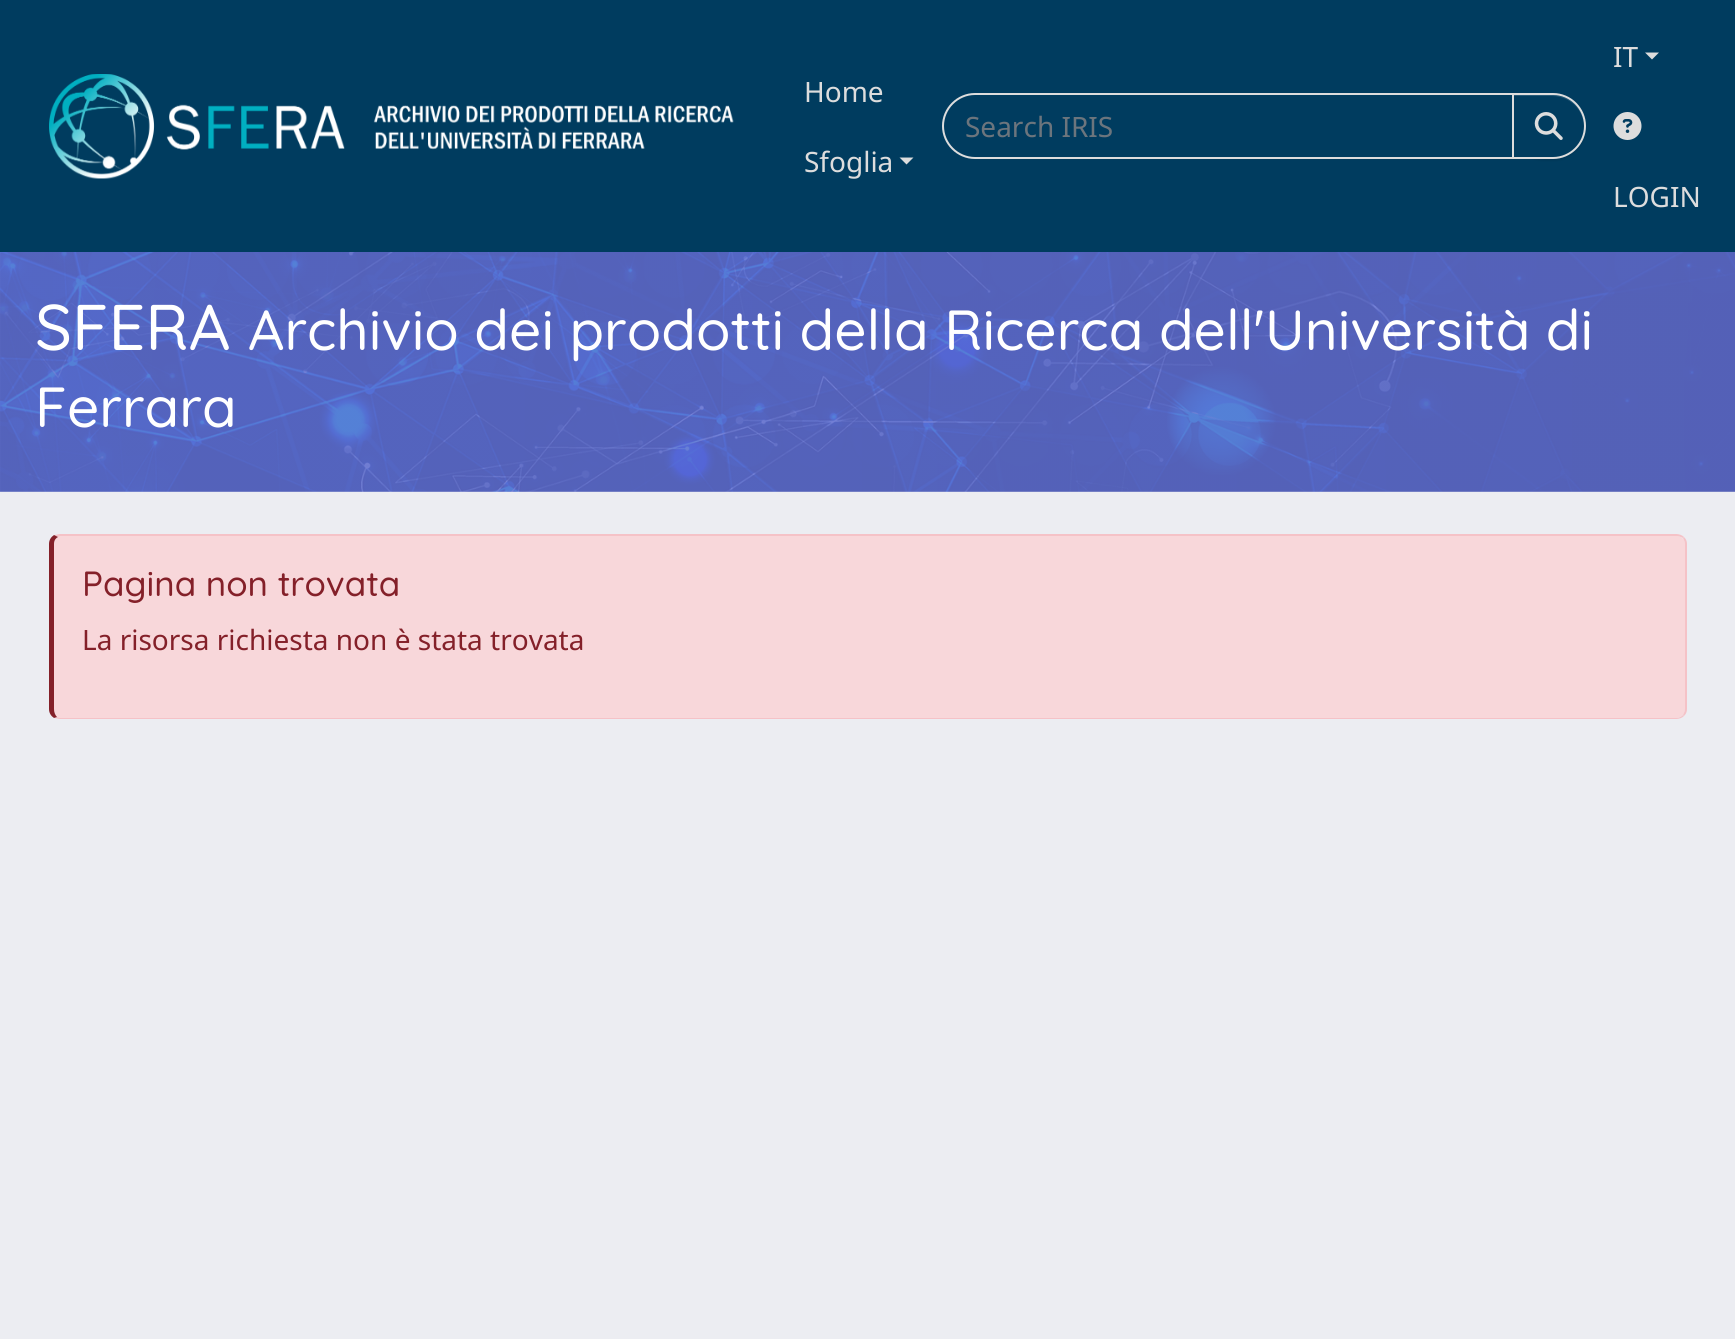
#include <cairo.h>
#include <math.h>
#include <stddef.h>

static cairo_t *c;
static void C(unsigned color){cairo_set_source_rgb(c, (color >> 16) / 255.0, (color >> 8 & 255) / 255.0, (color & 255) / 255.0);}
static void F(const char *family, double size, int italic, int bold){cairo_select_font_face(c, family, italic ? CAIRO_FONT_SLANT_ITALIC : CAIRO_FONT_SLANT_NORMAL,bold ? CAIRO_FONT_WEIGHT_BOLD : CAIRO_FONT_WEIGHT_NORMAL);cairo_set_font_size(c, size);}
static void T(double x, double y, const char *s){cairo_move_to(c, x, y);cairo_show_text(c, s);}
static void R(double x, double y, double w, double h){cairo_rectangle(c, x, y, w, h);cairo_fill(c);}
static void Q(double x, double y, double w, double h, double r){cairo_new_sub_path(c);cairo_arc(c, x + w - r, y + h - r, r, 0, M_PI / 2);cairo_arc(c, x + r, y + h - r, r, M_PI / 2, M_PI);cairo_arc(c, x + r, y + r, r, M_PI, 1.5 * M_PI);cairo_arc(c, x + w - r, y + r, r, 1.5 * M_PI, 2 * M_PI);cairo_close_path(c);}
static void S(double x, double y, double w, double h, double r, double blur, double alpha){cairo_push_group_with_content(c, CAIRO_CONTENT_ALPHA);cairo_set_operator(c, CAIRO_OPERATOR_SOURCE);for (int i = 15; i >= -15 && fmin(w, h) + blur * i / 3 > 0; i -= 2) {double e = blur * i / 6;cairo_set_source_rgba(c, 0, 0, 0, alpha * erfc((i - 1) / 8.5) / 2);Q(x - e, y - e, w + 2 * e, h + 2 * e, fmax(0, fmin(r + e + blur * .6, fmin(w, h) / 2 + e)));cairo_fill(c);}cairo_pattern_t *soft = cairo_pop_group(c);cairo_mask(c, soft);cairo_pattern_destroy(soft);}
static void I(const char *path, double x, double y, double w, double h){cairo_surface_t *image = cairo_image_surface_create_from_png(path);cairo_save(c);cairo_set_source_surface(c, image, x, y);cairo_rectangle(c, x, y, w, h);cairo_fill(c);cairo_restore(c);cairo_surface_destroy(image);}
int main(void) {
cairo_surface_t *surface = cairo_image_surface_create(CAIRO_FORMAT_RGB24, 1735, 1339);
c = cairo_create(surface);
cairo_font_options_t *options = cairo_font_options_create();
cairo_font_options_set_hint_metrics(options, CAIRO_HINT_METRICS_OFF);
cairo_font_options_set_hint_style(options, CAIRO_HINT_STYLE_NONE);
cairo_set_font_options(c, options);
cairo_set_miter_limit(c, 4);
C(0xecedf2);
cairo_paint(c);
C(0x003c5f);
R(0,0,1735,252);
I("1.png",49,74,685,105);
F("Noto Sans",28,0,0);
C(0xdddddd);
T(804,102,"Home");
T(804,172,"Sfoglia");
cairo_new_path(c);
cairo_move_to(c,899.5,157.5);
cairo_line_to(c,913.5,157.5);
cairo_line_to(c,906.5,164.5);
cairo_close_path(c);
cairo_fill(c);
cairo_new_path(c);
cairo_move_to(c,975,94);
cairo_line_to(c,1513,94);
cairo_line_to(c,1513,158);
cairo_line_to(c,975,158);
cairo_curve_to(c,957.5,158,943,143.5,943,126);
cairo_curve_to(c,943,108.5,957.5,94,975,94);
cairo_close_path(c);
cairo_stroke(c);
C(0x6c757d);
T(965,137,"Search IRIS");
C(0x000000);
S(1512,95,74,66,33,1,.07);
C(0x003c5f);
cairo_new_path(c);
cairo_move_to(c,1512,93);
cairo_line_to(c,1553,93);
cairo_curve_to(c,1571,93,1586,108,1586,126);
cairo_curve_to(c,1586,144,1571,159,1553,159);
cairo_line_to(c,1512,159);
cairo_close_path(c);
cairo_fill(c);
C(0x265977);
cairo_new_path(c);
cairo_move_to(c,1514,96);
cairo_line_to(c,1552,96);
cairo_curve_to(c,1570,96,1584,110,1584,127);
cairo_line_to(c,1584,126);
cairo_curve_to(c,1584,109,1570,95,1552,95);
cairo_line_to(c,1514,95);
cairo_close_path(c);
cairo_fill(c);
cairo_new_path(c);
cairo_move_to(c,1513,94);
cairo_line_to(c,1553,94);
cairo_curve_to(c,1570.5,94,1585,108.5,1585,126);
cairo_curve_to(c,1585,143.5,1570.5,158,1553,158);
cairo_line_to(c,1513,158);
cairo_close_path(c);
C(0xdddddd);
cairo_stroke(c);
I("2.png",1534,112,29,28);
T(1613,67,"IT");
cairo_new_path(c);
cairo_move_to(c,1645,52.5);
cairo_line_to(c,1659,52.5);
cairo_line_to(c,1652,59.5);
cairo_close_path(c);
cairo_fill(c);
I("3.png",1613,112,29,28);
T(1613,207,"LOGIN");
I("4.png",0,252,1735,240);
F("Quicksand Medium",64.5,0,0);
C(0xffffff);
T(35,350,"SFERA");
F("Quicksand Medium",56.5,0,0);
T(248,350,"Archivio dei prodotti della Ricerca dell'Università di");
T(35,427,"Ferrara");
C(0xf8d7da);
cairo_new_path(c);
cairo_move_to(c,60,536);
cairo_line_to(c,1676,536);
cairo_curve_to(c,1681,536,1685,539,1685,544);
cairo_line_to(c,1685,709);
cairo_curve_to(c,1685,714,1681,718,1676,718);
cairo_line_to(c,60,718);
cairo_curve_to(c,57,718,54,714,54,709);
cairo_line_to(c,54,544);
cairo_curve_to(c,54,539,57,536,60,536);
cairo_close_path(c);
cairo_fill(c);
C(0xf5c2c7);
cairo_new_path(c);
cairo_move_to(c,60,534);
cairo_curve_to(c,58,534,56,535,54,535);
cairo_line_to(c,58,537);
cairo_line_to(c,60,536);
cairo_line_to(c,1676,536);
cairo_curve_to(c,1679,536,1681,537,1683,538);
cairo_line_to(c,1684,537);
cairo_curve_to(c,1682,535,1679,534,1676,534);
cairo_close_path(c);
cairo_fill(c);
cairo_new_path(c);
cairo_move_to(c,1684,537);
cairo_curve_to(c,1686,539,1687,541,1687,544);
cairo_line_to(c,1687,709);
cairo_curve_to(c,1687,712,1686,714,1684,716);
cairo_line_to(c,1683,715);
cairo_curve_to(c,1684,713,1685,711,1685,709);
cairo_line_to(c,1685,544);
cairo_curve_to(c,1685,542,1684,540,1683,538);
cairo_close_path(c);
cairo_fill(c);
cairo_new_path(c);
cairo_move_to(c,1684,716);
cairo_curve_to(c,1682,718,1679,719,1676,719);
cairo_line_to(c,60,719);
cairo_curve_to(c,58,719,56,718,54,718);
cairo_line_to(c,57,717);
cairo_curve_to(c,58,717,59,718,60,718);
cairo_line_to(c,1676,718);
cairo_curve_to(c,1679,718,1681,717,1683,715);
cairo_close_path(c);
cairo_fill(c);
C(0x842029);
cairo_new_path(c);
cairo_move_to(c,49,544);
cairo_line_to(c,49,709);
cairo_curve_to(c,49,713,51,716,54,718);
cairo_line_to(c,57,717);
cairo_curve_to(c,55,715,54,712,54,709);
cairo_line_to(c,54,544);
cairo_curve_to(c,54,540,56,538,58,537);
cairo_line_to(c,54,535);
cairo_curve_to(c,51,537,49,540,49,544);
cairo_close_path(c);
cairo_fill(c);
F("Quicksand Medium",35,0,0);
T(82,596,"Pagina non trovata");
F("Noto Sans",28,0,0);
T(82,650,"La risorsa richiesta non è stata trovata");
cairo_surface_write_to_png(surface, "o.png");
cairo_font_options_destroy(options);
cairo_destroy(c);
cairo_surface_destroy(surface);
return 0;
}
